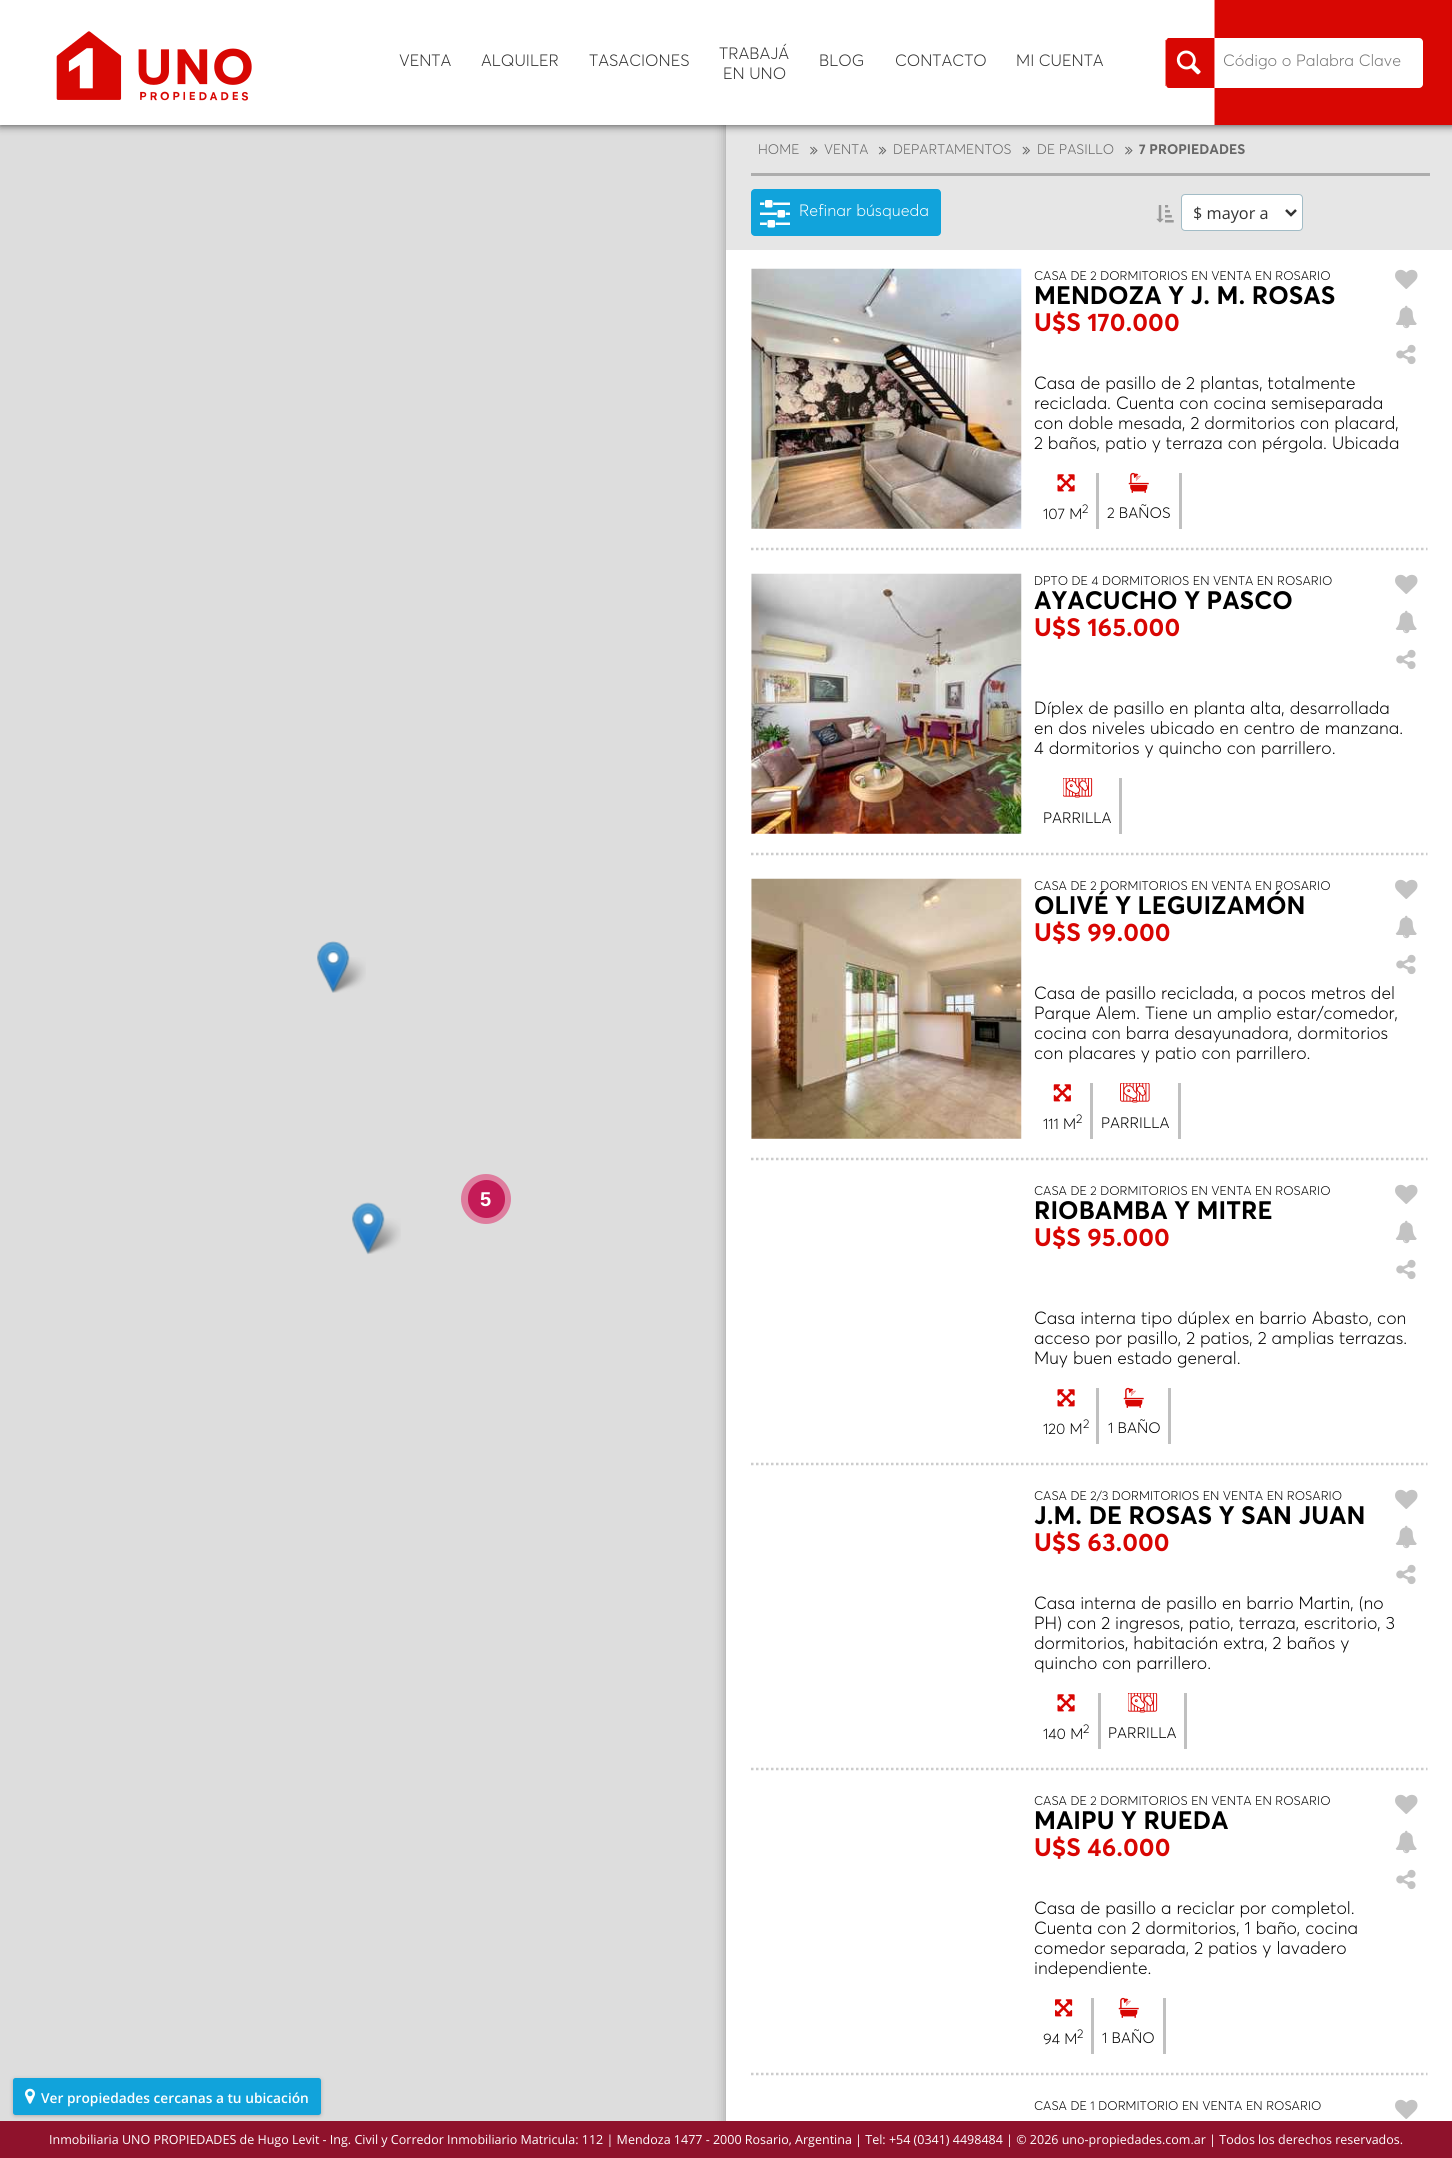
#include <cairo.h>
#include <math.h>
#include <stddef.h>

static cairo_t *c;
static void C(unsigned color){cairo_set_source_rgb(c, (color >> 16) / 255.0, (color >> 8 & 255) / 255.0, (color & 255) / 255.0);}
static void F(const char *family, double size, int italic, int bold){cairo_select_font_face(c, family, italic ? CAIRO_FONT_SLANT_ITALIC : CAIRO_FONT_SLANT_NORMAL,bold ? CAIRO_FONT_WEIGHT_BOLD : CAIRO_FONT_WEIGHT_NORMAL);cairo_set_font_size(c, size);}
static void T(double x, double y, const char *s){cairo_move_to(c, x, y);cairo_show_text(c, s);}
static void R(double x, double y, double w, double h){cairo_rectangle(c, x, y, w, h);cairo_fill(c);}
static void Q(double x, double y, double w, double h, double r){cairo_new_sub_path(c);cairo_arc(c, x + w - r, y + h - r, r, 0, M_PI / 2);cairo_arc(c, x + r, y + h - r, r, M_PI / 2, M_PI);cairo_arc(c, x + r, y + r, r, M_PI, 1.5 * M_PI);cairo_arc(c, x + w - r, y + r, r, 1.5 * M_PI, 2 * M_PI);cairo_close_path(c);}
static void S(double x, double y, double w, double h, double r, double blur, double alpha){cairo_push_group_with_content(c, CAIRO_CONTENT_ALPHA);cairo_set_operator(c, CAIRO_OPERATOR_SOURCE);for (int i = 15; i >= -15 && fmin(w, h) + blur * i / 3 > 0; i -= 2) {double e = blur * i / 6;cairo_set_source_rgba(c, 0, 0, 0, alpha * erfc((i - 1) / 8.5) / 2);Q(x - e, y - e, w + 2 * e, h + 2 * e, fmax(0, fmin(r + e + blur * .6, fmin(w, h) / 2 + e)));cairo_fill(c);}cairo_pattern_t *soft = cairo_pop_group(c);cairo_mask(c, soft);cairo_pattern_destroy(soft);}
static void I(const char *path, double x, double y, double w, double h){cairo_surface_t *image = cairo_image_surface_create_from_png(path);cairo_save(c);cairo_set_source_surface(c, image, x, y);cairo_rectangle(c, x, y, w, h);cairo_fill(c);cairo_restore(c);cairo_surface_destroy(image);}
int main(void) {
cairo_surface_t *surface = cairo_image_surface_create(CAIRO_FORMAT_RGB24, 1452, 2158);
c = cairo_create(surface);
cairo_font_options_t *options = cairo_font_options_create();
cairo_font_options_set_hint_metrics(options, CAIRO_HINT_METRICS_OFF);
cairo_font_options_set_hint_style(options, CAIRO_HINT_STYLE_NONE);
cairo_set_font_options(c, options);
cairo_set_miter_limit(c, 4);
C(0xdddddd);
cairo_paint(c);
C(0x000000);
S(726,0,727,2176,0,6,.3);
C(0xe6e6e6);
R(726,125,726,125);
C(0x000000);
S(0,0,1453,125,0,4.5,.75);
C(0xffffff);
R(0,0,1214,125);
I("1.png",56,31,196,70);
F("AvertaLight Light",16.25,0,0);
C(0x333333);
T(399,66,"VENTA");
T(481,66,"ALQUILER");
T(589,66,"TASACIONES");
T(719,59,"TRABAJÁ");
T(723,79,"EN UNO");
T(819,66,"BLOG");
T(895,66,"CONTACTO");
T(1016,66,"MI CUENTA");
C(0xd80703);
R(1215,0,237,125);
C(0xf48886);
R(1214,0,1,125);
C(0xffffff);
Q(1165,38,258,50,4);
cairo_fill(c);
C(0xf48886);
R(1165,40,1,46);
C(0xd80703);
cairo_new_path(c);
cairo_move_to(c,1215,88);
cairo_line_to(c,1169,88);
cairo_curve_to(c,1167,88,1166,86,1166,84);
cairo_line_to(c,1166,41);
cairo_curve_to(c,1166,40,1167,39,1168,38);
cairo_line_to(c,1215,38);
cairo_close_path(c);
cairo_fill(c);
C(0xf48886);
R(1214,38,1,50);
I("2.png",1176,50,25,25);
C(0x757575);
T(1223,66,"Código o Palabra Clave");
I("3.png",328,957,38,36);
I("4.png",363,1218,38,36);
I("5.png",317,941,33,52);
C(0xde7d9e);
cairo_arc(c,486,1199,25,0,2 * M_PI);
cairo_fill(c);
C(0xc41b57);
Q(468,1180,37,38,18.5);
cairo_fill(c);
F("Liberation Sans",20,0,1);
C(0xffffff);
T(480,1206,"5");
I("6.png",352,1202,33,53);
C(0x000000);
S(14,2080,306,35,1,2.5,.3);
C(0x11a3db);
Q(13,2078,308,37,2.5);
cairo_fill(c);
I("7.png",25,2088,10,16);
F("Open Sans SemiBold",13.75,0,0);
C(0xffffff);
T(41,2103,"Ver propiedades cercanas a tu ubicación");
R(726,250,726,1871);
F("AvertaLight Light",13.75,0,0);
C(0x666666);
T(758,154,"HOME");
I("8.png",810,146,8,9);
T(824,154,"VENTA");
I("9.png",878,146,9,9);
T(893,154,"DEPARTAMENTOS");
I("10.png",1022,146,8,9);
T(1037,154,"DE PASILLO");
I("8.png",1125,146,8,9);
F("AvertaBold",13.75,0,1);
T(1139,154,"7 PROPIEDADES");
C(0xadadad);
R(751,173,679,3);
C(0x11a3db);
Q(751,189,190,47,4);
cairo_fill(c);
I("11.png",760,200,30,28);
F("AvertaLight Light",16.25,0,0);
C(0xffffff);
T(799,216,"Refinar búsqueda");
I("12.png",1156,205,18,18);
Q(1181.5,194.5,121,36,3.5);
cairo_fill_preserve(c);
C(0xa2bcc6);
cairo_set_line_width(c,1);
cairo_stroke(c);
cairo_new_path(c);
cairo_move_to(c,1286,210);
cairo_line_to(c,1291,215);
cairo_line_to(c,1296,210);
C(0x333333);
cairo_set_line_width(c,2.5);
cairo_stroke(c);
F("Open Sans",16.25,0,0);
T(1193,219,"$ mayor a");
cairo_new_path(c);
cairo_move_to(c,751,549);
cairo_line_to(c,1427.5,549);
C(0xcccccc);
cairo_set_dash(c,(double[]){2.5,2.5},2,0);
cairo_stroke(c);
I("13.png",751,268,271,261);
F("AvertaLight Light",12.5,0,0);
C(0x000000);
T(1034,280,"CASA DE 2 DORMITORIOS EN VENTA EN ROSARIO");
F("AvertaBold",25,0,1);
T(1034,304,"MENDOZA Y J. M. ROSAS");
C(0xd80603);
T(1034,331,"U$S 170.000");
F("AvertaLight Light",17.5,0,0);
C(0x000000);
T(1034,389,"Casa de pasillo de 2 plantas, totalmente");
T(1034,409,"reciclada. Cuenta con cocina semiseparada");
T(1034,429,"con doble mesada, 2 dormitorios con placard,");
T(1034,449,"2 baños, patio y terraza con pérgola. Ubicada");
I("14.png",1057,474,18,18);
F("AvertaLight Light",15,0,0);
T(1043,519,"107 M");
F("AvertaLight Light",12.5,0,0);
T(1082,513,"2");
C(0xc0c0c0);
R(1096,473,3,56);
I("15.png",1128,472,21,21);
F("AvertaLight Light",15,0,0);
C(0x000000);
T(1107,518,"2 BAÑOS");
C(0xc0c0c0);
R(1179,473,3,56);
I("16.png",1395,269,23,20);
I("17.png",1395,305,22,24);
I("18.png",1396,344,20,21);
cairo_new_path(c);
cairo_move_to(c,751,854);
cairo_line_to(c,1427.5,854);
C(0xcccccc);
cairo_stroke(c);
I("19.png",751,573,271,261);
F("AvertaLight Light",12.5,0,0);
C(0x000000);
T(1034,585,"DPTO DE 4 DORMITORIOS EN VENTA EN ROSARIO");
F("AvertaBold",25,0,1);
T(1034,609,"AYACUCHO Y PASCO");
C(0xd80603);
T(1034,636,"U$S 165.000");
F("AvertaLight Light",17.5,0,0);
C(0x000000);
T(1034,714,"Díplex de pasillo en planta alta, desarrollada");
T(1034,734,"en dos niveles ubicado en centro de manzana.");
T(1034,754,"4 dormitorios y quincho con parrillero.");
I("20.png",1063,778,30,20);
F("AvertaLight Light",15,0,0);
T(1043,823,"PARRILLA");
C(0xc0c0c0);
R(1119,778,3,56);
I("16.png",1395,574,23,20);
I("17.png",1395,610,22,24);
I("18.png",1396,649,20,21);
cairo_new_path(c);
cairo_move_to(c,751,1159);
cairo_line_to(c,1427.5,1159);
C(0xcccccc);
cairo_stroke(c);
I("21.png",751,878,271,261);
F("AvertaLight Light",12.5,0,0);
C(0x000000);
T(1034,890,"CASA DE 2 DORMITORIOS EN VENTA EN ROSARIO");
F("AvertaBold",25,0,1);
T(1034,914,"OLIVÉ Y LEGUIZAMÓN");
C(0xd80603);
T(1034,941,"U$S 99.000");
F("AvertaLight Light",17.5,0,0);
C(0x000000);
T(1034,999,"Casa de pasillo reciclada, a pocos metros del");
T(1034,1019,"Parque Alem. Tiene un amplio estar/comedor,");
T(1034,1039,"cocina con barra desayunadora, dormitorios");
T(1034,1059,"con placares y patio con parrillero.");
I("22.png",1053,1084,18,18);
F("AvertaLight Light",15,0,0);
T(1043,1129,"111 M");
F("AvertaLight Light",12.5,0,0);
T(1076,1123,"2");
C(0xc0c0c0);
R(1090,1083,3,56);
I("23.png",1120,1083,30,20);
F("AvertaLight Light",15,0,0);
C(0x000000);
T(1101,1128,"PARRILLA");
C(0xc0c0c0);
R(1178,1083,3,56);
I("16.png",1395,879,23,20);
I("17.png",1395,915,22,24);
I("18.png",1396,954,20,21);
cairo_new_path(c);
cairo_move_to(c,751,1464);
cairo_line_to(c,1427.5,1464);
C(0xcccccc);
cairo_stroke(c);
I("16.png",1395,1184,23,20);
I("17.png",1395,1220,22,24);
I("18.png",1396,1259,20,21);
F("AvertaLight Light",12.5,0,0);
C(0x000000);
T(1034,1195,"CASA DE 2 DORMITORIOS EN VENTA EN ROSARIO");
F("AvertaBold",25,0,1);
T(1034,1219,"RIOBAMBA Y MITRE");
C(0xd80603);
T(1034,1246,"U$S 95.000");
F("AvertaLight Light",17.5,0,0);
C(0x000000);
T(1034,1324,"Casa interna tipo dúplex en barrio Abasto, con");
T(1034,1344,"acceso por pasillo, 2 patios, 2 amplias terrazas.");
T(1034,1364,"Muy buen estado general.");
I("14.png",1057,1389,18,18);
F("AvertaLight Light",15,0,0);
T(1043,1434,"120 M");
F("AvertaLight Light",12.5,0,0);
T(1083,1428,"2");
C(0xc0c0c0);
R(1096,1388,3,56);
I("15.png",1123,1387,21,21);
F("AvertaLight Light",15,0,0);
C(0x000000);
T(1108,1433,"1 BAÑO");
C(0xc0c0c0);
R(1168,1388,3,56);
cairo_new_path(c);
cairo_move_to(c,751,1769);
cairo_line_to(c,1427.5,1769);
C(0xcccccc);
cairo_stroke(c);
F("AvertaLight Light",12.5,0,0);
C(0x000000);
T(1034,1500,"CASA DE 2/3 DORMITORIOS EN VENTA EN ROSARIO");
F("AvertaBold",25,0,1);
T(1034,1524,"J.M. DE ROSAS Y SAN JUAN");
C(0xd80603);
T(1034,1551,"U$S 63.000");
F("AvertaLight Light",17.5,0,0);
C(0x000000);
T(1034,1609,"Casa interna de pasillo en barrio Martin, (no");
T(1034,1629,"PH) con 2 ingresos, patio, terraza, escritorio, 3");
T(1034,1649,"dormitorios, habitación extra, 2 baños y");
T(1034,1669,"quincho con parrillero.");
I("14.png",1057,1694,18,18);
F("AvertaLight Light",15,0,0);
T(1043,1739,"140 M");
F("AvertaLight Light",12.5,0,0);
T(1083,1733,"2");
C(0xc0c0c0);
R(1098,1693,3,56);
I("20.png",1128,1693,30,20);
F("AvertaLight Light",15,0,0);
C(0x000000);
T(1108,1738,"PARRILLA");
C(0xc0c0c0);
R(1184,1693,3,56);
I("16.png",1395,1489,23,20);
I("17.png",1395,1525,22,24);
I("18.png",1396,1564,20,21);
cairo_new_path(c);
cairo_move_to(c,751,2074);
cairo_line_to(c,1427.5,2074);
C(0xcccccc);
cairo_stroke(c);
F("AvertaLight Light",12.5,0,0);
C(0x000000);
T(1034,1805,"CASA DE 2 DORMITORIOS EN VENTA EN ROSARIO");
F("AvertaBold",25,0,1);
T(1034,1829,"MAIPU Y RUEDA");
C(0xd80603);
T(1034,1856,"U$S 46.000");
F("AvertaLight Light",17.5,0,0);
C(0x000000);
T(1034,1914,"Casa de pasillo a reciclar por completol.");
T(1034,1934,"Cuenta con 2 dormitorios, 1 baño, cocina");
T(1034,1954,"comedor separada, 2 patios y lavadero");
T(1034,1974,"independiente.");
I("24.png",1055,1999,18,18);
F("AvertaLight Light",15,0,0);
T(1043,2044,"94 M");
F("AvertaLight Light",12.5,0,0);
T(1077,2038,"2");
C(0xc0c0c0);
R(1091,1998,3,56);
I("15.png",1118,1997,21,21);
F("AvertaLight Light",15,0,0);
C(0x000000);
T(1102,2043,"1 BAÑO");
C(0xc0c0c0);
R(1163,1998,3,56);
I("16.png",1395,1794,23,20);
I("17.png",1395,1830,22,24);
I("18.png",1396,1869,20,21);
F("AvertaLight Light",12.5,0,0);
C(0x000000);
T(1034,2110,"CASA DE 1 DORMITORIO EN VENTA EN ROSARIO");
I("16.png",1395,2099,23,20);
C(0x8f122c);
R(0,2121,1452,37);
F("Open Sans",12.5,0,0);
C(0xffffff);
T(49,2144,"Inmobiliaria UNO PROPIEDADES de Hugo Levit - Ing. Civil y Corredor Inmobiliario Matricula: 112 | Mendoza 1477 - 2000 Rosario, Argentina | Tel: +54 (0341) 4498484 | © 2026 uno-propiedades.com.ar | Todos los derechos reservados.");
cairo_surface_write_to_png(surface, "o.png");
cairo_font_options_destroy(options);
cairo_destroy(c);
cairo_surface_destroy(surface);
return 0;
}
